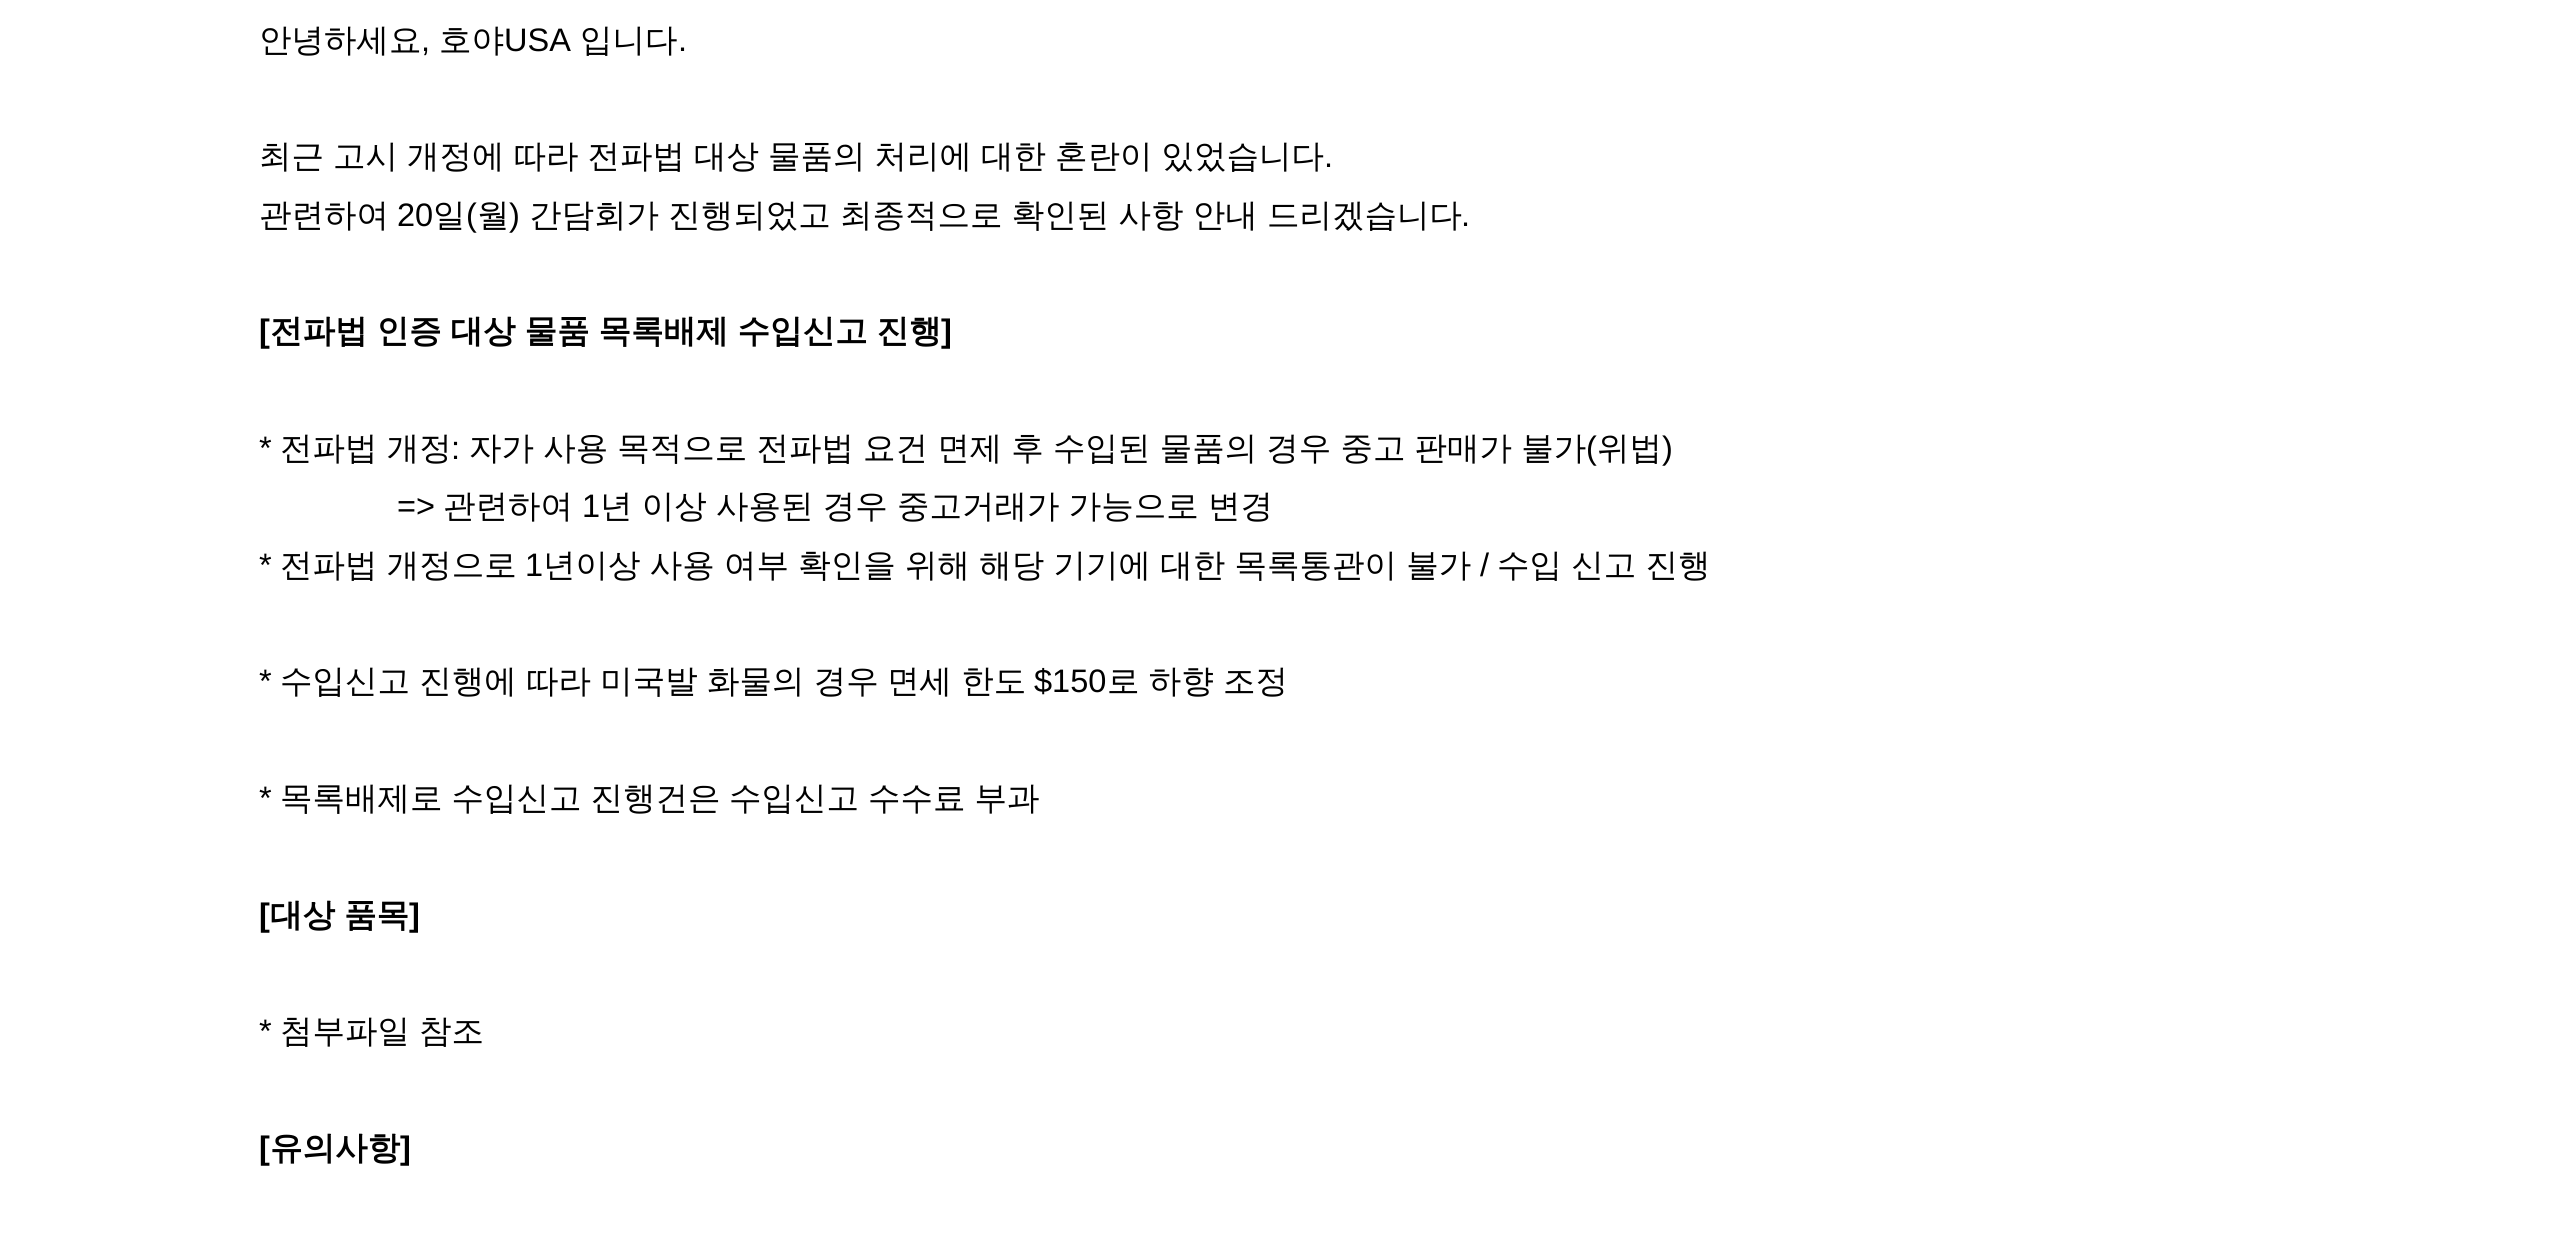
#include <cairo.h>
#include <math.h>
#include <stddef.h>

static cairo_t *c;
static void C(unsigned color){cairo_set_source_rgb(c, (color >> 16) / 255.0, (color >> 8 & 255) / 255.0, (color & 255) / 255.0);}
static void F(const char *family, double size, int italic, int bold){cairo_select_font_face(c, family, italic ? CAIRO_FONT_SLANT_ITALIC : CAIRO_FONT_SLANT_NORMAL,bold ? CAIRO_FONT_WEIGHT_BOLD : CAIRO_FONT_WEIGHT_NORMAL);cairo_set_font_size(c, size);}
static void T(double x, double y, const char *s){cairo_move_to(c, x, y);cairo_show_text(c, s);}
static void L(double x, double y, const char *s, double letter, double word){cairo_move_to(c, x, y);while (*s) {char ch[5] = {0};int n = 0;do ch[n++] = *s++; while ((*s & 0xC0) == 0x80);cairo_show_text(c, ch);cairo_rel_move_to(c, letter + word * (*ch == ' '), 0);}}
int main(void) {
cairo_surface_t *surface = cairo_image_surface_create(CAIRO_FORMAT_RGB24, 2567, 1260);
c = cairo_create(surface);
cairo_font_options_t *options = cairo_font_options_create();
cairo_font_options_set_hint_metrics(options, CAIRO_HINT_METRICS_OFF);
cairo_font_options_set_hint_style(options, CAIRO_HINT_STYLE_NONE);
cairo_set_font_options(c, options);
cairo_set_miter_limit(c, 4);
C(0xffffff);
cairo_paint(c);
F("WenQuanYi Zen Hei Medium",32.5,0,0);
C(0x000000);
T(259,51,"안녕하세요");
F("Liberation Sans",32.5,0,0);
T(421,51,",");
F("WenQuanYi Zen Hei Medium",32.5,0,0);
T(439,51,"호야");
F("Liberation Sans",32.5,0,0);
T(504,51,"USA");
F("WenQuanYi Zen Hei Medium",32.5,0,0);
T(580,51,"입니다");
F("Liberation Sans",32.5,0,0);
T(678,51,".");
F("WenQuanYi Zen Hei Medium",32.5,0,0);
L(259,167,"최근 고시 개정에 따라 전파법 대상 물품의 처리에 대한 혼란이 있었습니다",0,-.75);
F("Liberation Sans",32.5,0,0);
T(1324,167,".");
F("WenQuanYi Zen Hei Medium",32.5,0,0);
T(259,226,"관련하여");
F("Liberation Sans",32.5,0,0);
T(397,226,"20");
F("WenQuanYi Zen Hei Medium",32.5,0,0);
T(433,226,"일");
F("Liberation Sans",32.5,0,0);
T(466,226,"(");
F("WenQuanYi Zen Hei Medium",32.5,0,0);
T(477,226,"월");
F("Liberation Sans",32.5,0,0);
T(509,226,")");
F("WenQuanYi Zen Hei Medium",32.5,0,0);
L(529,226,"간담회가 진행되었고 최종적으로 확인된 사항 안내 드리겠습니다",0,-.5);
F("Liberation Sans",32.5,0,0);
T(1461,226,".");
F("Liberation Sans",32.5,0,1);
T(259,342,"[");
F("WenQuanYi Zen Hei",32.5,0,1);
L(270,342,"전파법 인증 대상 물품 목록배제 수입신고 진행",0,-.75);
F("Liberation Sans",32.5,0,1);
T(941,342,"]");
F("Liberation Sans",32.5,0,0);
T(259,459,"*");
F("WenQuanYi Zen Hei Medium",32.5,0,0);
L(280,459,"전파법 개정",0,-.6);
F("Liberation Sans",32.5,0,0);
T(451,459,":");
F("WenQuanYi Zen Hei Medium",32.5,0,0);
L(469,459,"자가 사용 목적으로 전파법 요건 면제 후 수입된 물품의 경우 중고 판매가 불가",0,-.6);
F("Liberation Sans",32.5,0,0);
T(1586,459,"(");
F("WenQuanYi Zen Hei Medium",32.5,0,0);
T(1597,459,"위법");
F("Liberation Sans",32.5,0,0);
T(1662,459,")");
T(397,517,"=>");
F("WenQuanYi Zen Hei Medium",32.5,0,0);
T(443,517,"관련하여");
F("Liberation Sans",32.5,0,0);
T(582,517,"1");
F("WenQuanYi Zen Hei Medium",32.5,0,0);
L(600,517,"년 이상 사용된 경우 중고거래가 가능으로 변경",0,-.5);
F("Liberation Sans",32.5,0,0);
T(259,576,"*");
F("WenQuanYi Zen Hei Medium",32.5,0,0);
L(280,576,"전파법 개정으로",0,-.5);
F("Liberation Sans",32.5,0,0);
T(525,576,"1");
F("WenQuanYi Zen Hei Medium",32.5,0,0);
L(543,576,"년이상 사용 여부 확인을 위해 해당 기기에 대한 목록통관이 불가",0,-.5);
F("Liberation Sans",32.5,0,0);
T(1480,576,"/");
F("WenQuanYi Zen Hei Medium",32.5,0,0);
L(1497,576,"수입 신고 진행",0,-.5);
F("Liberation Sans",32.5,0,0);
T(259,692,"*");
F("WenQuanYi Zen Hei Medium",32.5,0,0);
L(280,692,"수입신고 진행에 따라 미국발 화물의 경우",0,-.5);
L(887,692,"면세 한도",0,-.5);
F("Liberation Sans",32.5,0,0);
T(1034,692,"$150");
F("WenQuanYi Zen Hei Medium",32.5,0,0);
L(1107,692,"로 하향 조정",0,-.5);
F("Liberation Sans",32.5,0,0);
T(259,809,"*");
F("WenQuanYi Zen Hei Medium",32.5,0,0);
L(280,809,"목록배제로 수입신고 진행건은",0,-.75);
L(729,809,"수입신고 수수료 부과",0,-.75);
F("Liberation Sans",32.5,0,1);
T(259,926,"[");
F("WenQuanYi Zen Hei",32.5,0,1);
L(270,926,"대상 품목",0,-.75);
F("Liberation Sans",32.5,0,1);
T(409,926,"]");
F("Liberation Sans",32.5,0,0);
T(259,1042,"*");
F("WenQuanYi Zen Hei Medium",32.5,0,0);
L(280,1042,"첨부파일 참조",0,-.75);
F("Liberation Sans",32.5,0,1);
T(259,1159,"[");
F("WenQuanYi Zen Hei",32.5,0,1);
T(270,1159,"유의사항");
F("Liberation Sans",32.5,0,1);
T(400,1159,"]");
cairo_surface_write_to_png(surface, "o.png");
cairo_font_options_destroy(options);
cairo_destroy(c);
cairo_surface_destroy(surface);
return 0;
}
